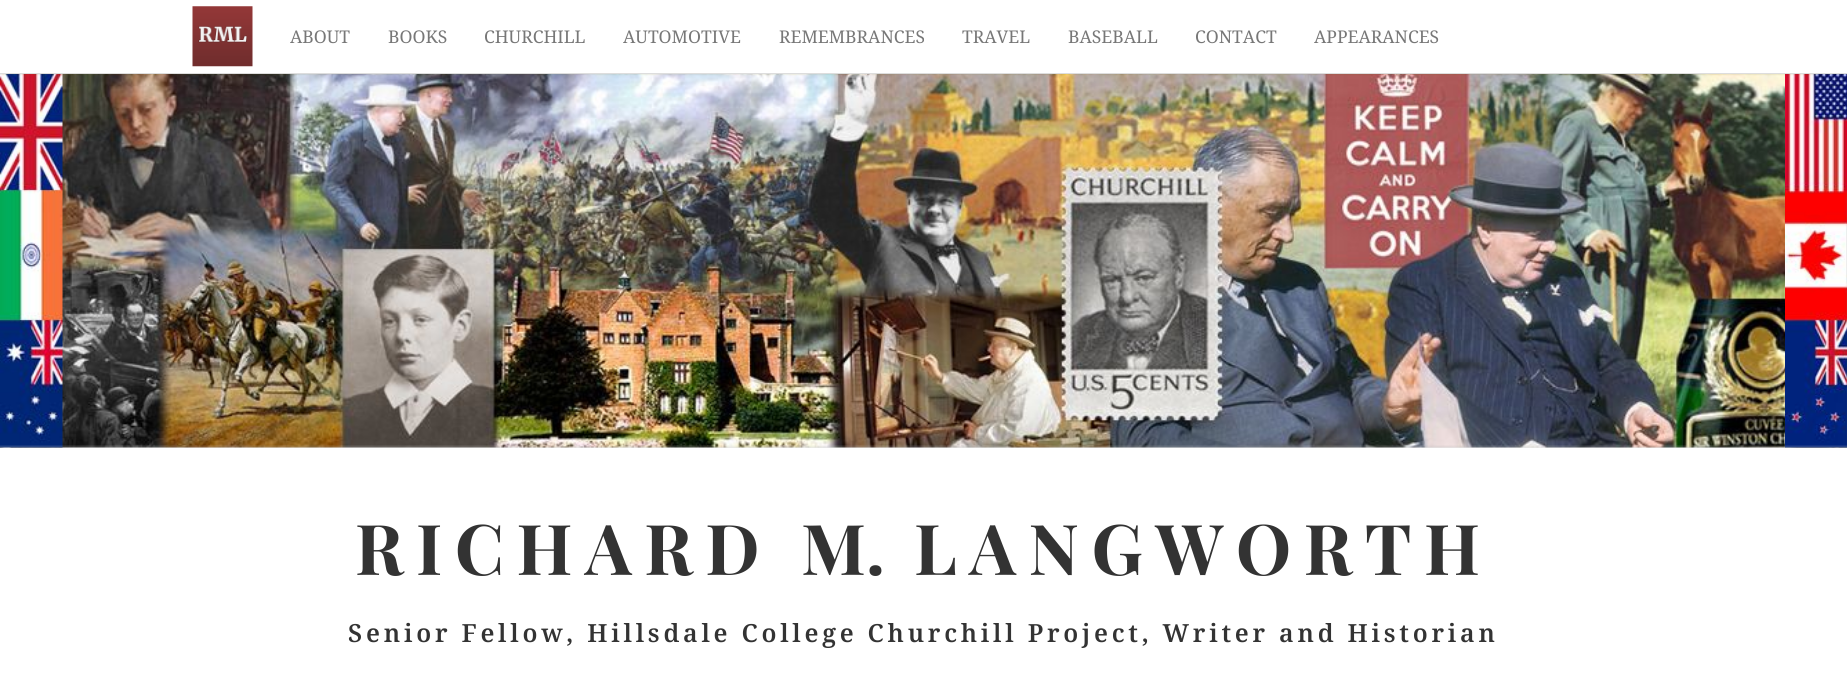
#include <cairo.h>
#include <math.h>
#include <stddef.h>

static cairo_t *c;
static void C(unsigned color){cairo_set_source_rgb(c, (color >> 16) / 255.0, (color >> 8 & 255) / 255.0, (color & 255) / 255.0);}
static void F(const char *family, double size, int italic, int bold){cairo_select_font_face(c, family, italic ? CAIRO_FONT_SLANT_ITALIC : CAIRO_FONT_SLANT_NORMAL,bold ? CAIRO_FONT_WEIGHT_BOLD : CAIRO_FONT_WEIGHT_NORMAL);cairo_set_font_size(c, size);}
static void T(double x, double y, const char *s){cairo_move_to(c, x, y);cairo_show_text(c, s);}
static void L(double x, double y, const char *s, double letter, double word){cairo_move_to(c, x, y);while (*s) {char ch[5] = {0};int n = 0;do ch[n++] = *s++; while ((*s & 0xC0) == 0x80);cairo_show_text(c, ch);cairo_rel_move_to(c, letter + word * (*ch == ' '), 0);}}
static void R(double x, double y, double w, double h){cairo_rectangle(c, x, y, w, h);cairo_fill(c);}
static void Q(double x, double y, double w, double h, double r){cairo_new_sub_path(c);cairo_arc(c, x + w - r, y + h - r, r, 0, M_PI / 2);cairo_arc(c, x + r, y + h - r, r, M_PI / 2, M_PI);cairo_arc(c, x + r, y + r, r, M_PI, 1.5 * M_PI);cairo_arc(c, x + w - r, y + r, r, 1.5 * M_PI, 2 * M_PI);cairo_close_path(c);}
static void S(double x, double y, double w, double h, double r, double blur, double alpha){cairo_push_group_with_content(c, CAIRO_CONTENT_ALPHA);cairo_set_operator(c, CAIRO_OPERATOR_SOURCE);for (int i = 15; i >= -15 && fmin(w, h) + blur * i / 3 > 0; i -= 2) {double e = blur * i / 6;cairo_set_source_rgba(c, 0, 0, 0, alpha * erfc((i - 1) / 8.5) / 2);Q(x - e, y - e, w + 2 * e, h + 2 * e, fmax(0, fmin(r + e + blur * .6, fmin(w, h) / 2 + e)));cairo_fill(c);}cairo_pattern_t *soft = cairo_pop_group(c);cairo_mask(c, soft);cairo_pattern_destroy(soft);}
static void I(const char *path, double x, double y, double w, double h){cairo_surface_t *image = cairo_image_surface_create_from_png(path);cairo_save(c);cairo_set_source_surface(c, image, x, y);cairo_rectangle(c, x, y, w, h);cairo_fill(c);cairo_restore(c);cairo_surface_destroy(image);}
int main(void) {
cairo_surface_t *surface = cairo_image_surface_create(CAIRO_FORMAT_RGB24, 1847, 687);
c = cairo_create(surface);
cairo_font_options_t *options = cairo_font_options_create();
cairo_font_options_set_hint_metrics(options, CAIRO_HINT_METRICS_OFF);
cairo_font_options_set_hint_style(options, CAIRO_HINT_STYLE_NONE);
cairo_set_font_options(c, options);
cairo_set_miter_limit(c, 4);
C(0xffffff);
cairo_paint(c);
I("2.png",0,74,1847,374);
I("3.png",0,74,63,374);
I("4.png",1785,74,62,374);
C(0x646400);
S(0,1,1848,74,0,.5,.1);
C(0xffffff);
R(0,0,1847,73);
C(0xdddddd);
R(0,73,1847,1);
I("1.png",192,6,61,61);
F("Noto Serif",17.5,0,0);
C(0x777777);
T(290,43,"ABOUT");
T(388,43,"BOOKS");
T(484,43,"CHURCHILL");
T(623,43,"AUTOMOTIVE");
T(779,43,"REMEMBRANCES");
T(962,43,"TRAVEL");
T(1068,43,"BASEBALL");
T(1195,43,"CONTACT");
T(1314,43,"APPEARANCES");
cairo_save(c);
cairo_rectangle(c,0,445,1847,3);
cairo_clip(c);
C(0xb6b6b6);
S(-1,446,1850,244,0,1,.3);
cairo_restore(c);
F("Playfair Display",70,0,1);
C(0x333333);
L(355,575,"RICHARD",12.5,0);
T(801,575,"M.");
L(914,575,"LANGWORTH",12.5,0);
F("Noto Serif SemiBold",25,0,0);
L(348,642,"Senior Fellow, Hillsdale College Churchill Project, Writer and Historian",3.75,0);
cairo_surface_write_to_png(surface, "o.png");
cairo_font_options_destroy(options);
cairo_destroy(c);
cairo_surface_destroy(surface);
return 0;
}
